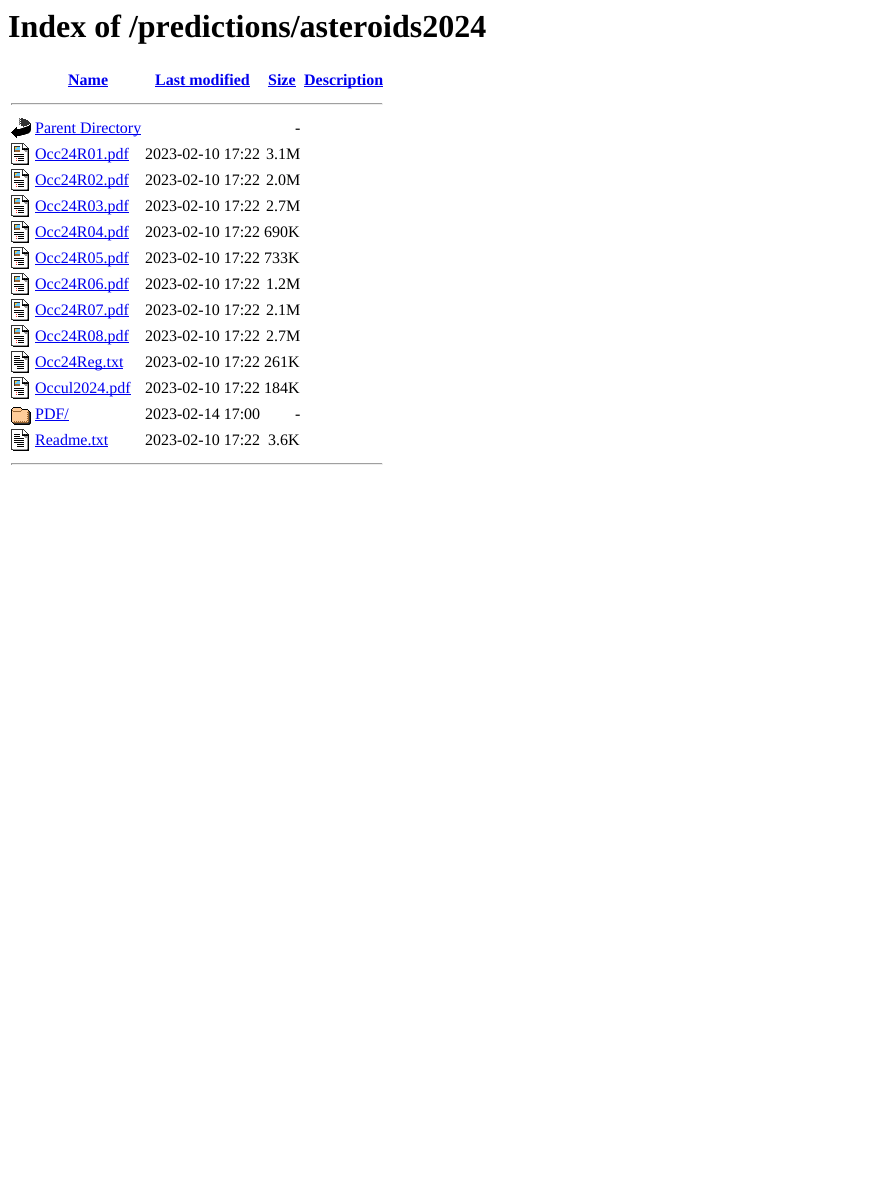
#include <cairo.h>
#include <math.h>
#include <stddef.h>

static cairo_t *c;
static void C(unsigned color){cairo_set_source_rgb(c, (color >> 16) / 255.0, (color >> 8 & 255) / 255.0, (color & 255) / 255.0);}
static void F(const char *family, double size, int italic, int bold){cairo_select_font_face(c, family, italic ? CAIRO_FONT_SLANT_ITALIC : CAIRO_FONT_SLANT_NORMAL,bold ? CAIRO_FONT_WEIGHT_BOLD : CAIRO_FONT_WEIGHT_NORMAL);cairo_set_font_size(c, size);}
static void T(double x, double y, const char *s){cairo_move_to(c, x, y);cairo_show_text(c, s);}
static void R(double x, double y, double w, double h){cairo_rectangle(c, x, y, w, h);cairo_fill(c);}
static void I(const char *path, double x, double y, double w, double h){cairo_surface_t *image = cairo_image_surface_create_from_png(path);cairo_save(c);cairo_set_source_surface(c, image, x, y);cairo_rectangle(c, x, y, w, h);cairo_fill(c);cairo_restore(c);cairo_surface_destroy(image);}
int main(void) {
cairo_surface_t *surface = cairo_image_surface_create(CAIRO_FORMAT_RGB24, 885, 1197);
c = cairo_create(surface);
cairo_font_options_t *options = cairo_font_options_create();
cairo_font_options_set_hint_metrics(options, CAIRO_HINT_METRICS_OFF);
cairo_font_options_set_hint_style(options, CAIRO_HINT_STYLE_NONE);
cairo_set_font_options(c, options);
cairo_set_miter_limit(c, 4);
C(0xffffff);
cairo_paint(c);
F("Liberation Serif",32,0,1);
C(0x000000);
T(8,37,"Index of /predictions/asteroids2024");
F("Liberation Serif",16,0,1);
C(0x0000ee);
T(68,85,"Name");
R(68,86,40,1);
T(155,85,"Last modified");
R(155,86,95,1);
T(268,85,"Size");
R(268,86,28,1);
R(304,86,79,1);
T(304,85,"Description");
C(0x9f9f9f);
R(11,103,372,1);
C(0xeeeeee);
R(382,103,1,2);
R(11,104,372,1);
C(0x9f9f9f);
R(11,103,1,2);
I("1.png",11,118,20,20);
C(0x0000ee);
R(35,134,106,1);
F("Liberation Serif",16,0,0);
T(35,133,"Parent Directory");
C(0x000000);
T(295,133,"-");
I("2.png",11,143,18,22);
C(0x0000ee);
R(35,160,94,1);
T(35,159,"Occ24R01.pdf");
C(0x000000);
T(145,159,"2023-02-10 17:22");
T(266,159,"3.1M");
I("2.png",11,169,18,22);
C(0x0000ee);
R(35,186,94,1);
T(35,185,"Occ24R02.pdf");
C(0x000000);
T(145,185,"2023-02-10 17:22");
T(266,185,"2.0M");
I("2.png",11,195,18,22);
C(0x0000ee);
R(35,212,94,1);
T(35,211,"Occ24R03.pdf");
C(0x000000);
T(145,211,"2023-02-10 17:22");
T(266,211,"2.7M");
I("2.png",11,221,18,22);
C(0x0000ee);
R(35,238,94,1);
T(35,237,"Occ24R04.pdf");
C(0x000000);
T(145,237,"2023-02-10 17:22 690K");
I("2.png",11,247,18,22);
C(0x0000ee);
R(35,264,94,1);
T(35,263,"Occ24R05.pdf");
C(0x000000);
T(145,263,"2023-02-10 17:22 733K");
I("2.png",11,273,18,22);
C(0x0000ee);
R(35,290,94,1);
T(35,289,"Occ24R06.pdf");
C(0x000000);
T(145,289,"2023-02-10 17:22");
T(266,289,"1.2M");
I("2.png",11,299,18,22);
C(0x0000ee);
R(35,316,94,1);
T(35,315,"Occ24R07.pdf");
C(0x000000);
T(145,315,"2023-02-10 17:22");
T(266,315,"2.1M");
I("2.png",11,325,18,22);
C(0x0000ee);
R(35,342,94,1);
T(35,341,"Occ24R08.pdf");
C(0x000000);
T(145,341,"2023-02-10 17:22");
T(266,341,"2.7M");
I("3.png",11,351,18,22);
C(0x0000ee);
R(35,368,88,1);
T(35,367,"Occ24Reg.txt");
C(0x000000);
T(145,367,"2023-02-10 17:22 261K");
I("2.png",11,377,18,22);
C(0x0000ee);
R(35,394,96,1);
T(35,393,"Occul2024.pdf");
C(0x000000);
T(145,393,"2023-02-10 17:22 184K");
I("4.png",11,407,20,18);
C(0x0000ee);
T(35,419,"PDF/");
R(35,420,34,1);
C(0x000000);
T(145,419,"2023-02-14 17:00");
T(295,419,"-");
I("3.png",11,429,18,22);
C(0x0000ee);
T(35,445,"Readme.txt");
R(35,446,73,1);
C(0x000000);
T(145,445,"2023-02-10 17:22");
T(268,445,"3.6K");
C(0x9f9f9f);
R(11,463,372,1);
C(0xeeeeee);
R(382,463,1,2);
R(11,464,372,1);
C(0x9f9f9f);
R(11,463,1,2);
cairo_surface_write_to_png(surface, "o.png");
cairo_font_options_destroy(options);
cairo_destroy(c);
cairo_surface_destroy(surface);
return 0;
}
